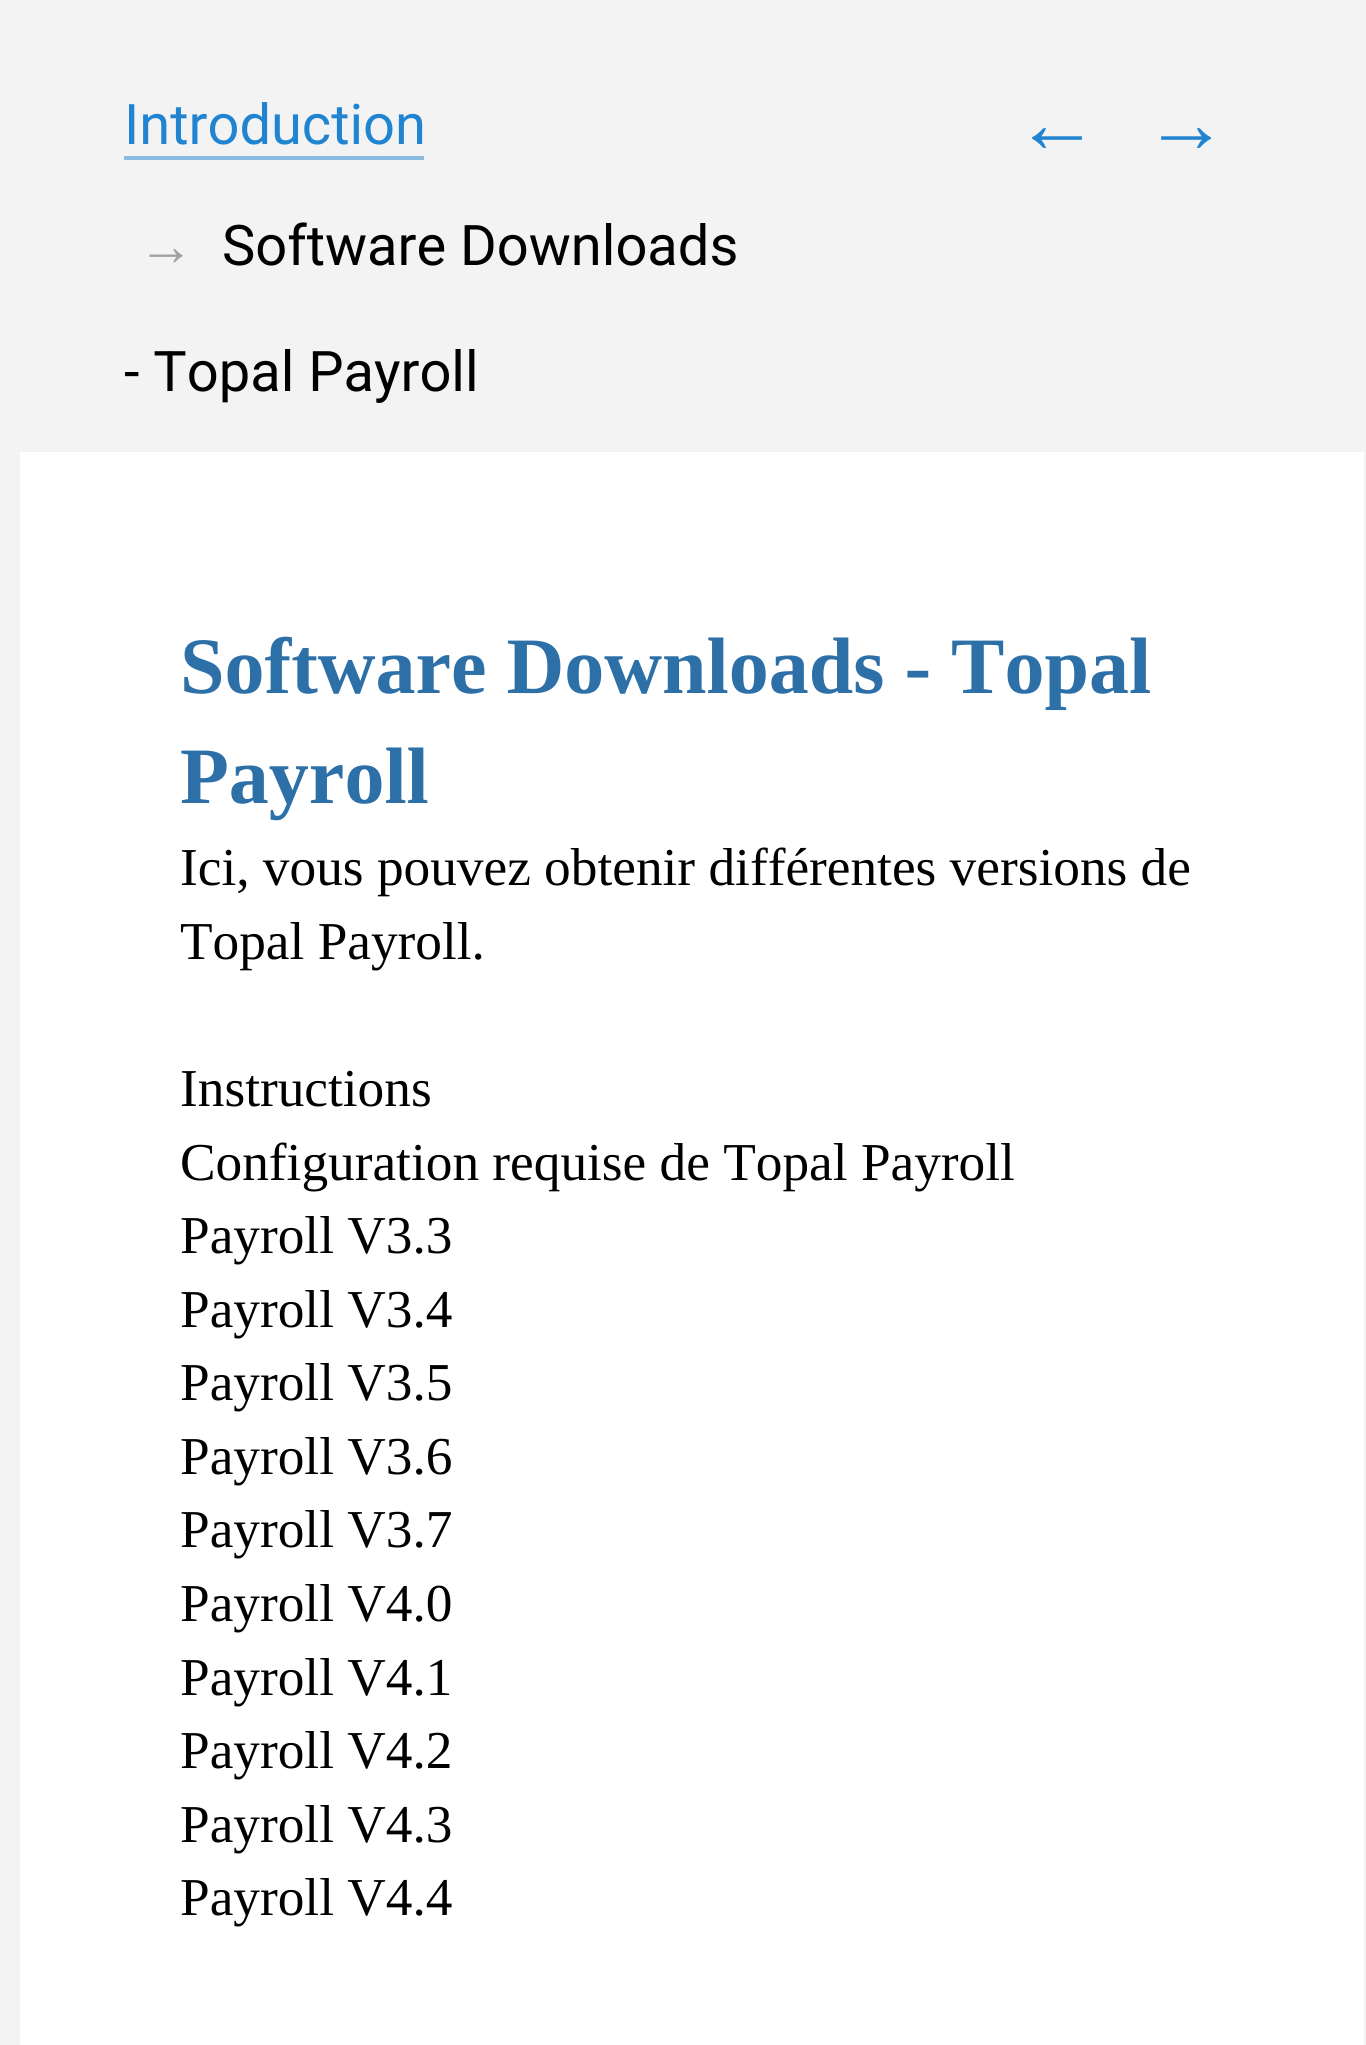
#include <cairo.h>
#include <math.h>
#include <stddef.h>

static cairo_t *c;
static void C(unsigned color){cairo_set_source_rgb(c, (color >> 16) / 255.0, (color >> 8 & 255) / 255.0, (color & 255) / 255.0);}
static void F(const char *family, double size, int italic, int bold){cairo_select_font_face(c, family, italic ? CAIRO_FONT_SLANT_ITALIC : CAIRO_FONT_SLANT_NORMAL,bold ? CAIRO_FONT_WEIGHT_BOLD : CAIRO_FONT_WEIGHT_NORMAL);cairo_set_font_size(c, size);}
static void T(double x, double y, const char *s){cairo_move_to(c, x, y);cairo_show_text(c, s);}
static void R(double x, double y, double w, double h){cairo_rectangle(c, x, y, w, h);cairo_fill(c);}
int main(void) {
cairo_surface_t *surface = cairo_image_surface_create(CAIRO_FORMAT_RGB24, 1366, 2045);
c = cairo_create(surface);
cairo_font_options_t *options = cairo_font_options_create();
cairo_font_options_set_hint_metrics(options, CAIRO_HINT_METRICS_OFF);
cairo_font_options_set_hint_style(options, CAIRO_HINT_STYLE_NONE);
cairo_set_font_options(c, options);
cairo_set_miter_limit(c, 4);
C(0xf3f3f3);
cairo_paint(c);
F("Roboto",56,0,0);
C(0x2184d0);
T(124,144,"Introduction");
C(0x8abbe1);
R(124,156,300,4);
F("Liberation Serif",56,0,0);
C(0xa1a1a1);
T(138,265,"→");
F("Roboto",56,0,0);
C(0x000000);
T(222,265,"Software Downloads");
T(124,391,"- Topal Payroll");
F("Liberation Sans",84,0,0);
C(0x2184d0);
T(1015,152,"←");
T(1144,152,"→");
C(0xffffff);
R(20,452,1344,1593);
F("Liberation Serif",80,0,1);
C(0x2d6fa7);
T(180,693,"Software Downloads - Topal");
T(180,803,"Payroll");
F("Liberation Serif",53.3,0,0);
C(0x000000);
T(180,885,"Ici, vous pouvez obtenir différentes versions de");
T(180,959,"Topal Payroll.");
T(180,1106,"Instructions");
T(180,1180,"Configuration requise de Topal Payroll");
T(180,1253,"Payroll V3.3");
T(180,1327,"Payroll V3.4");
T(180,1400,"Payroll V3.5");
T(180,1474,"Payroll V3.6");
T(180,1547,"Payroll V3.7");
T(180,1621,"Payroll V4.0");
T(180,1695,"Payroll V4.1");
T(180,1768,"Payroll V4.2");
T(180,1842,"Payroll V4.3");
T(180,1915,"Payroll V4.4");
cairo_surface_write_to_png(surface, "o.png");
cairo_font_options_destroy(options);
cairo_destroy(c);
cairo_surface_destroy(surface);
return 0;
}
